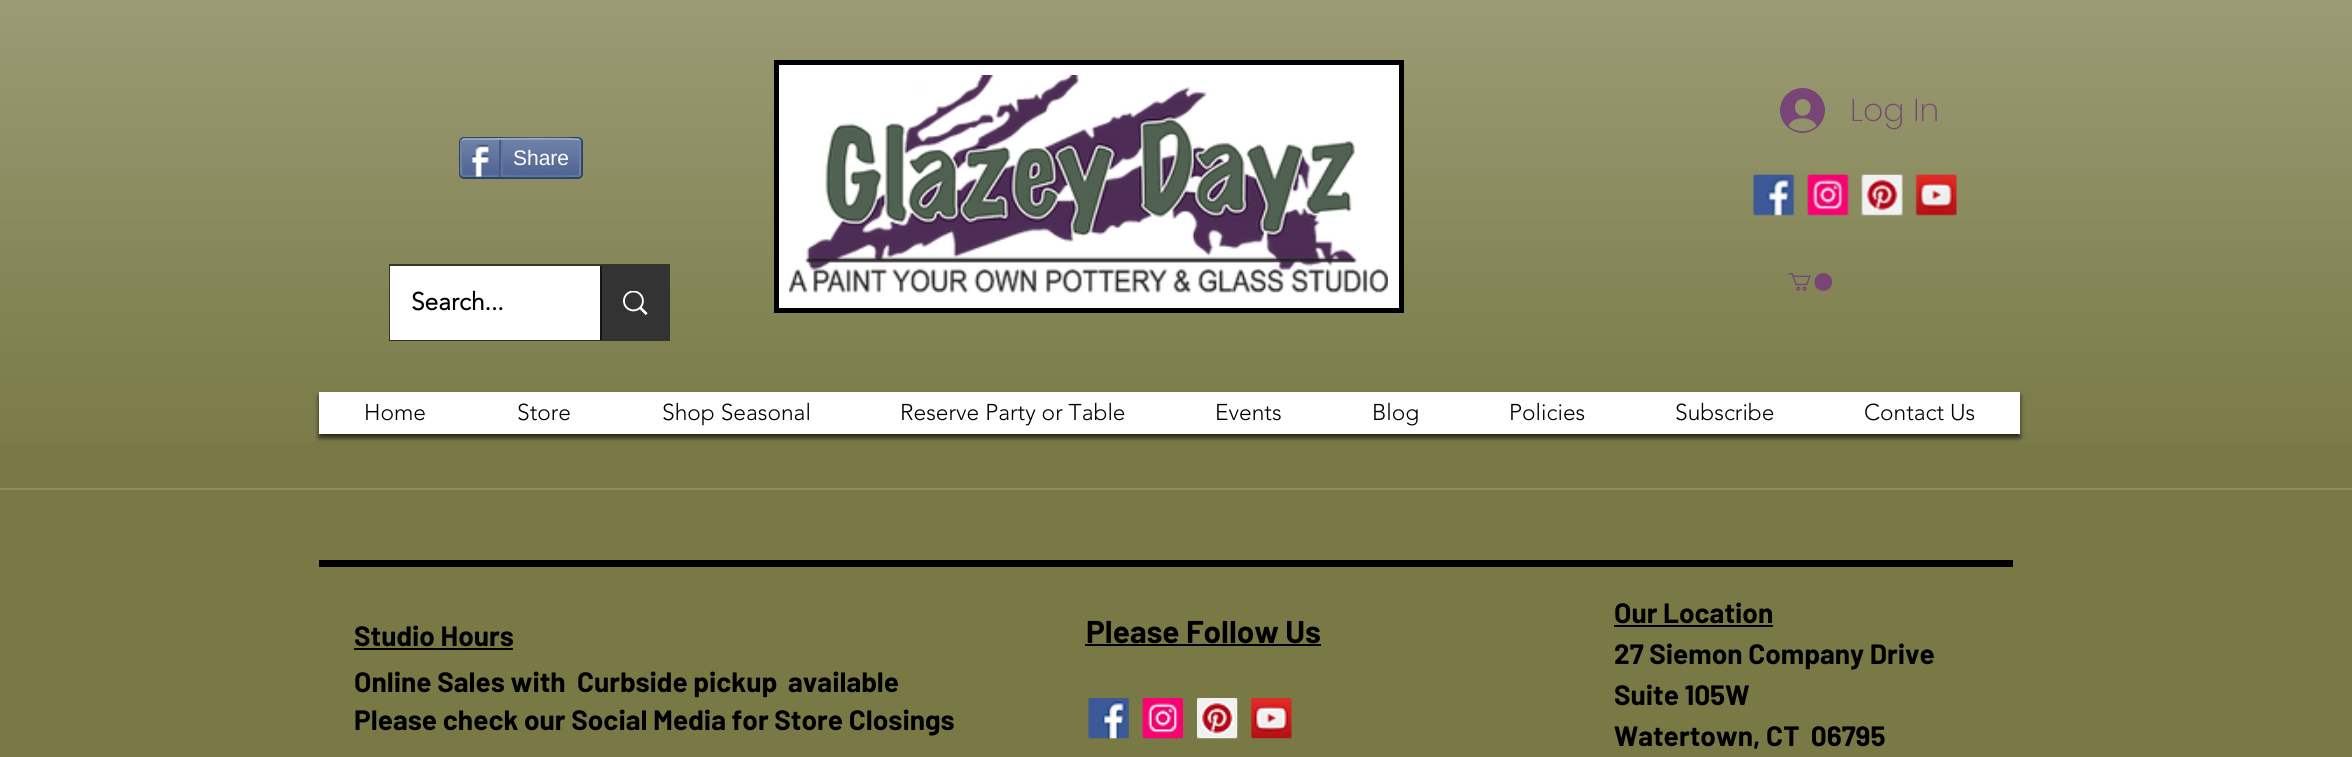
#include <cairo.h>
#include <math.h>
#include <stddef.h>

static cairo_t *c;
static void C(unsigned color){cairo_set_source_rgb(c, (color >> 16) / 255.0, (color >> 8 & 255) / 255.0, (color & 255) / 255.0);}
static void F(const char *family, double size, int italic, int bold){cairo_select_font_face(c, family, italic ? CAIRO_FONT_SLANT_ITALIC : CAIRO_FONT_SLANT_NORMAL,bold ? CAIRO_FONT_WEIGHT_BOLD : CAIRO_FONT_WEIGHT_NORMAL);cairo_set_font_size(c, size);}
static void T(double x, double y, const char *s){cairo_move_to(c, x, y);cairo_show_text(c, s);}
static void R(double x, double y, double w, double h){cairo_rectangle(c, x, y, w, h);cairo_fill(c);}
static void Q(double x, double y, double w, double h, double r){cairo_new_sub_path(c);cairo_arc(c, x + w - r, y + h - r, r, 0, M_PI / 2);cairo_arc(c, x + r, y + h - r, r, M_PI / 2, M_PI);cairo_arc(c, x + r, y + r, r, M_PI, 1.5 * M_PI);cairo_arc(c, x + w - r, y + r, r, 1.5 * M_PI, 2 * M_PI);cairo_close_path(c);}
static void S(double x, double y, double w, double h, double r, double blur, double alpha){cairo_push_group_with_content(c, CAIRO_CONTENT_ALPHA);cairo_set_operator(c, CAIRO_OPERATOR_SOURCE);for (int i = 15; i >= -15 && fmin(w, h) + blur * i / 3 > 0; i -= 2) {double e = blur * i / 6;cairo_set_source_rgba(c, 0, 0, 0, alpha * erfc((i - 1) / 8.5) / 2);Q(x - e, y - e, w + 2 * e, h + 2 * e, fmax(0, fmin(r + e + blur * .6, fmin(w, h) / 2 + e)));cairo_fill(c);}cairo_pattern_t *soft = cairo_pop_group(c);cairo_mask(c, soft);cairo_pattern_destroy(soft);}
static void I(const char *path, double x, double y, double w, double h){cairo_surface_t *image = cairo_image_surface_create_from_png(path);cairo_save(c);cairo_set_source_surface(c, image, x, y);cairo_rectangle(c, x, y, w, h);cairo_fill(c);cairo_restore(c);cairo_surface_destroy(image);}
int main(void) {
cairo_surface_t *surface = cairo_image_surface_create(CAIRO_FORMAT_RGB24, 2352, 757);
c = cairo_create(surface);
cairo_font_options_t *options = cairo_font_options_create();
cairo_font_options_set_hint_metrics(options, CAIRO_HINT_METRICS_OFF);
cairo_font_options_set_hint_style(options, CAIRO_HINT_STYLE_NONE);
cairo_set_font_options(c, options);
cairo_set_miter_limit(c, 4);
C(0x787945);
cairo_paint(c);
I("1.png",0,0,2352,443);
C(0xffffff);
cairo_rectangle(c,776.5,62.5,625,248);
cairo_fill_preserve(c);
C(0x000000);
cairo_set_line_width(c,5);
cairo_stroke(c);
I("2.png",789,75,599,218);
I("3.png",1780,88,45,45);
F("Poppins ExtraLight",31.5,0,0);
C(0x794577);
T(1850,121,"Log In");
Q(460,138,122,40,4);
C(0x2d4565);
cairo_set_line_width(c,2);
cairo_stroke(c);
I("4.png",460,139,122,38);
cairo_new_path(c);
cairo_move_to(c,462,140);
cairo_line_to(c,464,139);
cairo_line_to(c,482.5,139);
cairo_curve_to(c,492.5,139,577,138,579,139.5);
cairo_line_to(c,579.5,140);
C(0x9aabc6);
cairo_set_line_width(c,1.8);
cairo_stroke(c);
cairo_new_path(c);
cairo_move_to(c,579.5,140);
cairo_curve_to(c,580,140.5,580,141,580,142);
cairo_line_to(c,580,173);
cairo_curve_to(c,580,174,580,174.5,579.5,175);
C(0x6f83ad);
cairo_stroke(c);
cairo_new_path(c);
cairo_move_to(c,579.5,175);
cairo_line_to(c,579,175.5);
cairo_curve_to(c,577,177,492.5,176,482.5,176);
cairo_line_to(c,464,176);
cairo_line_to(c,462,175);
C(0x6176a3);
cairo_stroke(c);
cairo_new_path(c);
cairo_move_to(c,462,175);
cairo_curve_to(c,461.5,174.5,461,174,461,173);
cairo_line_to(c,461,142);
cairo_curve_to(c,461,141,461.5,140.5,462,140);
C(0x6f83ad);
cairo_stroke(c);
I("5.png",471,144,18,33);
C(0x425e85);
R(499,140,2,37);
F("Liberation Sans",21,0,0);
C(0xffffff);
T(513,165,"Share");
C(0x6176a3);
R(501,140,2,35);
I("6.png",1753,174,42,42);
I("7.png",1807,174,42,42);
I("8.png",1861,174,42,42);
I("9.png",1915,174,42,42);
I("10.png",1788,273,45,18);
cairo_rectangle(c,390,265,279,75);
cairo_set_source_rgba(c,0,0,0,0.6);
cairo_set_line_width(c,2);
cairo_stroke(c);
C(0xffffff);
R(390,266,210,74);
F("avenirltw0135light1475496",24.5,0,1);
C(0x000000);
T(411,310,"Search...");
C(0x333333);
R(602,266,67,74);
C(0x141414);
R(600,266,2,74);
I("11.png",623,291,25,24);
C(0x000000);
S(319,396,1701,42,0,2.5,.7);
C(0xffffff);
R(319,392,1701,42);
F("avenirltw0135light1475496 Light",22.75,0,0);
C(0x000000);
T(364,420,"Home");
T(517,420,"Store");
T(662,420,"Shop Seasonal");
T(900,420,"Reserve Party or Table");
T(1215,420,"Events");
T(1372,420,"Blog");
T(1509,420,"Policies");
T(1675,420,"Subscribe");
T(1864,420,"Contact Us");
C(0x8c8d61);
R(0,488,2352,2);
C(0x000000);
R(319,560,1694,7);
F("Barlow",28,0,1);
T(354,646,"Studio Hours");
R(354,648,159,2);
T(354,692,"Online Sales with  Curbside pickup");
T(788,692,"available");
T(354,730,"Please check our Social Media for Store Closings");
F("Barlow",31.5,0,1);
T(1086,643,"Please Follow Us");
R(1085,644,236,2);
F("Barlow",28,0,1);
T(1614,623,"Our Location");
R(1614,625,159,2);
T(1614,664,"27 Siemon Company Drive");
T(1614,705,"Suite 105W");
T(1614,746,"Watertown, CT  06795");
I("12.png",1088,698,41,41);
I("13.png",1142,698,41,41);
I("14.png",1197,698,41,41);
I("15.png",1251,698,41,41);
cairo_surface_write_to_png(surface, "o.png");
cairo_font_options_destroy(options);
cairo_destroy(c);
cairo_surface_destroy(surface);
return 0;
}
